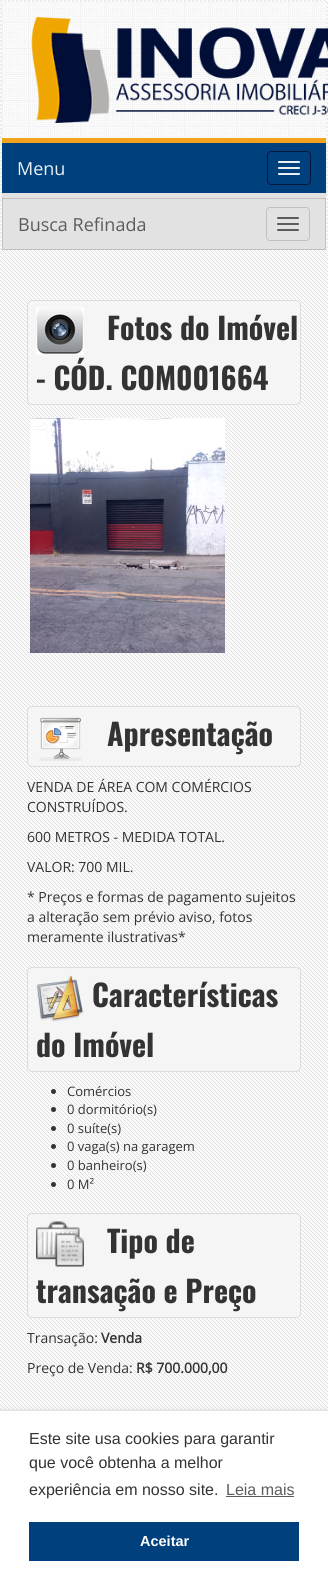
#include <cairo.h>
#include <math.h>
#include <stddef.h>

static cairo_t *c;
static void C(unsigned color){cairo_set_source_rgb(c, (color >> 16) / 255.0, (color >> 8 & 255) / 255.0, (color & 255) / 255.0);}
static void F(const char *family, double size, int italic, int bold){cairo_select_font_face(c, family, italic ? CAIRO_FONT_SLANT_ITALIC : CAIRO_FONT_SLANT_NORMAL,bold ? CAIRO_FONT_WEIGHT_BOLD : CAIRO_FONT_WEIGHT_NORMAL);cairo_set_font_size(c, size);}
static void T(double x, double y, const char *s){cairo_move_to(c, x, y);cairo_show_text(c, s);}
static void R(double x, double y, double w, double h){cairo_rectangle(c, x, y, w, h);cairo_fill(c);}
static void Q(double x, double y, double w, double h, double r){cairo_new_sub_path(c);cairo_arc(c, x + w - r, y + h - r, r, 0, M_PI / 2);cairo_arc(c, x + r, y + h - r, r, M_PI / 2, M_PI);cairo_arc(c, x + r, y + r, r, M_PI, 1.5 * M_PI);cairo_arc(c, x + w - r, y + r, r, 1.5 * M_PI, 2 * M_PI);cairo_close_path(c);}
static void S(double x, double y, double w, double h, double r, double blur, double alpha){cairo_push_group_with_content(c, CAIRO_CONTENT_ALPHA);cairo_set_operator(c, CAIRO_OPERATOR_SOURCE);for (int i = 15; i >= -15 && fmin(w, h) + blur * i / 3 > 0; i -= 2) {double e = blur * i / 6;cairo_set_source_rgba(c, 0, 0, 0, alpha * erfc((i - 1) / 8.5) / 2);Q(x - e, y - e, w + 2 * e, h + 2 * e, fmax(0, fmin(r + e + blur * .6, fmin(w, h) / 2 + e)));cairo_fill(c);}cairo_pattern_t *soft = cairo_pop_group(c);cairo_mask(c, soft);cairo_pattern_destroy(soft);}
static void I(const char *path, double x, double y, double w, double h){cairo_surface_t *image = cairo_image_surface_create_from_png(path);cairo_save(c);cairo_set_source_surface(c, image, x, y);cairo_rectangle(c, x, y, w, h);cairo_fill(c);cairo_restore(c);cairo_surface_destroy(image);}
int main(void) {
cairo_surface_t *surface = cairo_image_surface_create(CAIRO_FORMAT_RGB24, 328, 1577);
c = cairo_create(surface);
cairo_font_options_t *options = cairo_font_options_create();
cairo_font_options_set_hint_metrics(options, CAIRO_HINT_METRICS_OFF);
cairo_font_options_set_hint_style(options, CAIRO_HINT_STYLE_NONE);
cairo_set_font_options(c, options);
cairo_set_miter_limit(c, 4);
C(0xfafafa);
cairo_paint(c);
I("1.png",0,0,328,1411);
I("2.png",2,2,324,136);
I("3.png",31,17,297,106);
C(0x00417d);
R(2,143,324,50);
C(0xf2a21d);
R(2,138,324,5);
F("Open Sans",18,0,0);
C(0xecf0f1);
T(17,175,"Menu");
Q(267.5,151.5,43,33,3.5);
C(0x0b163d);
cairo_set_line_width(c,1);
cairo_stroke(c);
C(0xecf0f1);
Q(278,161,22,2,1);
cairo_fill(c);
Q(278,167,22,2,1);
cairo_fill(c);
Q(278,173,22,2,1);
cairo_fill(c);
C(0xe2e2e2);
R(2,193,324,56);
cairo_rectangle(c,2.5,198.5,323,51);
C(0xc0c0c0);
cairo_stroke(c);
C(0x5c5c5c);
T(18,231,"Busca Refinada");
Q(266.5,207.5,43,33,3.5);
C(0xc0c0c0);
cairo_stroke(c);
C(0x5c5c5c);
Q(277,217,22,2,1);
cairo_fill(c);
Q(277,223,22,2,1);
cairo_fill(c);
Q(277,229,22,2,1);
cairo_fill(c);
C(0xf5f5f5);
Q(27.5,300.5,273,104,4.5);
cairo_fill_preserve(c);
C(0xdcdcdc);
cairo_stroke(c);
I("4.png",36,307,48,48);
F("Oswald",30,0,1);
C(0x333333);
T(107,340,"Fotos do Imóvel");
T(36,390,"- CÓD. COM001664");
I("5.png",30,418,195,235);
C(0xf5f5f5);
Q(27.5,706.5,273,60,4.5);
cairo_fill_preserve(c);
C(0xdcdcdc);
cairo_stroke(c);
I("6.png",39,717,43,44);
C(0x333333);
T(107,746,"Apresentação");
F("Open Sans",14,0,0);
T(27,792,"VENDA DE ÁREA COM COMÉRCIOS");
T(27,812,"CONSTRUÍDOS.");
T(27,842,"600 METROS - MEDIDA TOTAL.");
T(27,872,"VALOR: 700 MIL.");
T(27,902,"* Preços e formas de pagamento sujeitos");
T(27,922,"a alteração sem prévio aviso, fotos");
T(27,942,"meramente ilustrativas*");
C(0xf5f5f5);
Q(27.5,967.5,273,104,4.5);
cairo_fill_preserve(c);
C(0xdcdcdc);
cairo_stroke(c);
I("7.png",36,975,48,47);
F("Oswald",30,0,1);
C(0x333333);
T(92,1007,"Características");
T(36,1057,"do Imóvel");
cairo_new_path(c);
cairo_arc(c,53.5,1091.5,2.5,0,2 * M_PI);
cairo_fill(c);
F("Open Sans",13,0,0);
T(67,1096,"Comércios");
cairo_new_path(c);
cairo_arc(c,53.5,1109.5,2.5,0,2 * M_PI);
cairo_fill(c);
T(67,1114,"0 dormitório(s)");
cairo_new_path(c);
cairo_arc(c,53.5,1128.5,2.5,0,2 * M_PI);
cairo_fill(c);
T(67,1133,"0 suíte(s)");
cairo_new_path(c);
cairo_arc(c,53.5,1146.5,2.5,0,2 * M_PI);
cairo_fill(c);
T(67,1151,"0 vaga(s) na garagem");
cairo_new_path(c);
cairo_arc(c,53.5,1165.5,2.5,0,2 * M_PI);
cairo_fill(c);
T(67,1170,"0 banheiro(s)");
cairo_new_path(c);
cairo_arc(c,53.5,1184.5,2.5,0,2 * M_PI);
cairo_fill(c);
T(67,1189,"0 M²");
C(0xf5f5f5);
Q(27.5,1213.5,273,104,4.5);
cairo_fill_preserve(c);
C(0xdcdcdc);
cairo_stroke(c);
I("8.png",36,1221,48,46);
F("Oswald",30,0,1);
C(0x333333);
T(107,1253,"Tipo de");
T(36,1303,"transação e Preço");
F("Open Sans",14,0,0);
T(27,1343,"Transação:");
F("Open Sans",14,0,1);
T(101,1343,"Venda");
F("Open Sans",14,0,0);
T(27,1373,"Preço de Venda:");
F("Open Sans",14,0,1);
T(136,1373,"R$ 700.000,00");
C(0xcccccc);
S(0,1411,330,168,0,2.5,1);
C(0xffffff);
R(0,1411,328,166);
F("Liberation Sans",16,0,0);
C(0x333333);
T(29,1444,"Este site usa cookies para garantir");
T(29,1468,"que você obtenha a melhor");
T(29,1495,"experiência em nosso site.");
C(0x5c5c5c);
T(226,1495,"Leia mais");
R(226,1496,68,1);
C(0x00417d);
R(29,1522,270,39);
F("Liberation Sans",14.5,0,1);
C(0xffffff);
T(140,1546,"Aceitar");
cairo_surface_write_to_png(surface, "o.png");
cairo_font_options_destroy(options);
cairo_destroy(c);
cairo_surface_destroy(surface);
return 0;
}
